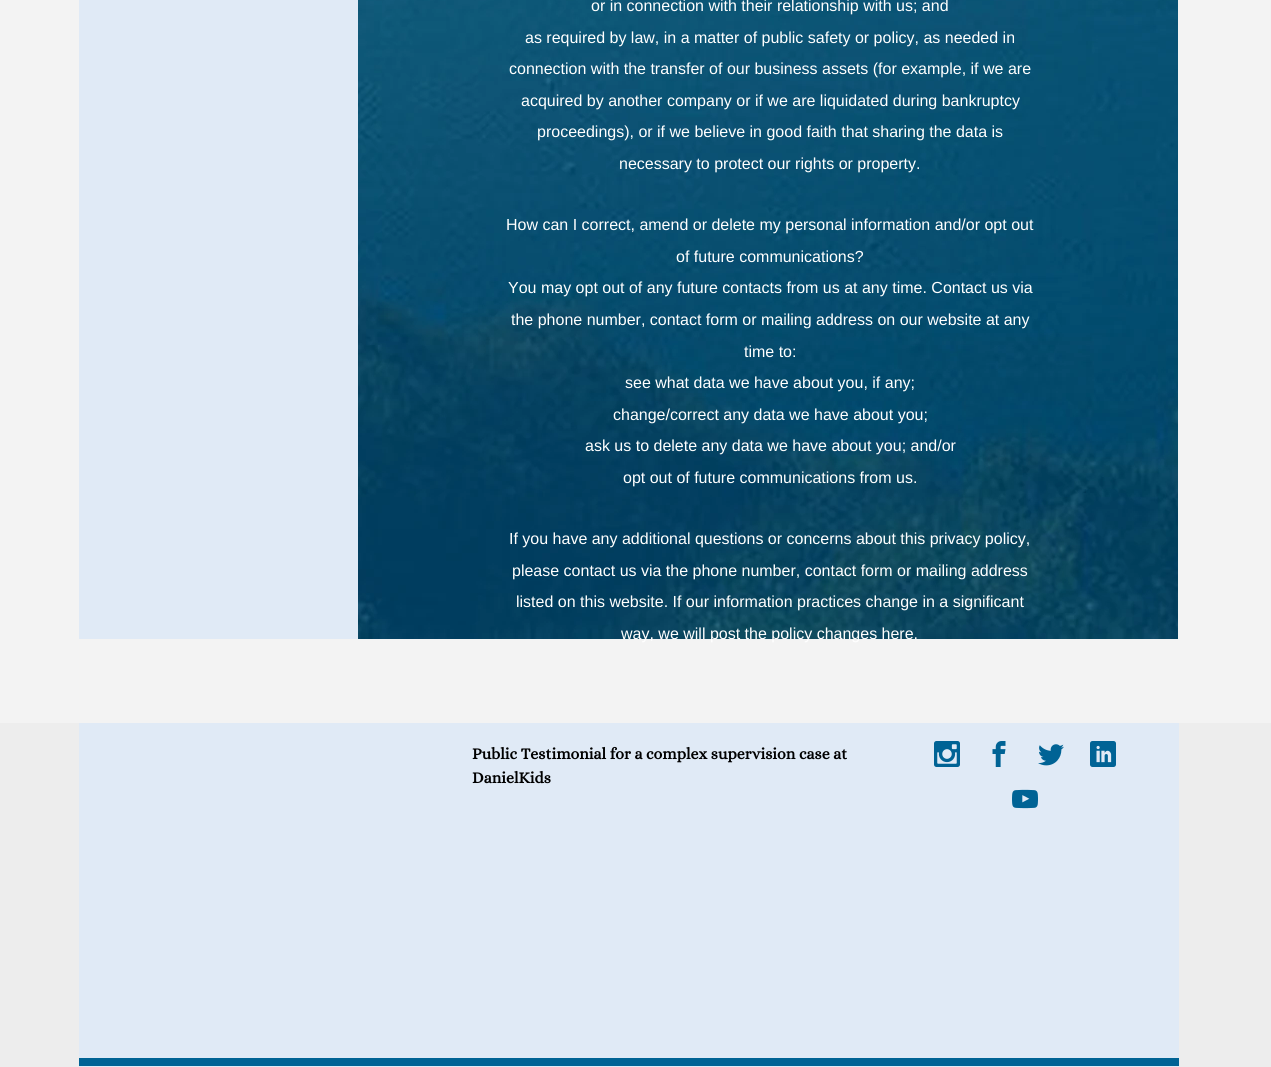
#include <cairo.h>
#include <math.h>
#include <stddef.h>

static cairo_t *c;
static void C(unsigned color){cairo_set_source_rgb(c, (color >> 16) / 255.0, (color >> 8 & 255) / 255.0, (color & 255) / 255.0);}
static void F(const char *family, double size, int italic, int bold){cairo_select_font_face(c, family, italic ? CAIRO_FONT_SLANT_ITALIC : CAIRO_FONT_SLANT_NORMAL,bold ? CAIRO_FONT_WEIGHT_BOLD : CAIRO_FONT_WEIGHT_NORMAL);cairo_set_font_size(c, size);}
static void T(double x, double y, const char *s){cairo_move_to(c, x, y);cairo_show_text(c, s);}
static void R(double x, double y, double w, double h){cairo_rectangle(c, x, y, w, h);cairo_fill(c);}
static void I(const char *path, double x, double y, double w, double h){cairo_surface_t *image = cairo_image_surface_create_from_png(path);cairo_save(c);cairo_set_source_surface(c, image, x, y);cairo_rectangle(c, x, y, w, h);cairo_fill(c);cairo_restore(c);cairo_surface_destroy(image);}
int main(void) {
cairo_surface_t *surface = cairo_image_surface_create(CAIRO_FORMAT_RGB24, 1271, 1067);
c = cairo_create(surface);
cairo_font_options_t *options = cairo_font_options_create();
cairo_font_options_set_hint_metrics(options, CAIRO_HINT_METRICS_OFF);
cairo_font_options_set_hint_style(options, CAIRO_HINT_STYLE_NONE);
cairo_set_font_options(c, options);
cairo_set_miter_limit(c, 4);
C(0xf3f3f3);
cairo_paint(c);
C(0xe0eaf6);
R(79,0,279,639);
I("1.png",358,0,820,639);
F("Liberation Sans",16,0,0);
C(0xffffff);
T(591,11,"or in connection with their relationship with us; and");
T(525,43,"as required by law, in a matter of public safety or policy, as needed in");
T(509,74,"connection with the transfer of our business assets (for example, if we are");
T(521,106,"acquired by another company or if we are liquidated during bankruptcy");
T(537,137,"proceedings), or if we believe in good faith that sharing the data is");
T(619,169,"necessary to protect our rights or property.");
T(506,230,"How can I correct, amend or delete my personal information and/or opt out");
T(676,262,"of future communications?");
T(508,293,"You may opt out of any future contacts from us at any time. Contact us via");
T(511,325,"the phone number, contact form or mailing address on our website at any");
T(744,357,"time to:");
T(625,388,"see what data we have about you, if any;");
T(613,420,"change/correct any data we have about you;");
T(585,451,"ask us to delete any data we have about you; and/or");
T(623,483,"opt out of future communications from us.");
T(509,544,"If you have any additional questions or concerns about this privacy policy,");
T(512,576,"please contact us via the phone number, contact form or mailing address");
T(516,607,"listed on this website. If our information practices change in a significant");
T(621,639,"way, we will post the policy changes here.");
C(0xededed);
R(0,723,1271,344);
C(0xe0eaf6);
R(79,723,1100,344);
F("Alice",16,0,1);
C(0x000000);
T(472,759,"Public Testimonial for a complex supervision case at");
T(472,783,"DanielKids");
I("2.png",934,741,26,26);
I("3.png",992,741,14,26);
I("4.png",1038,744,26,22);
I("5.png",1090,741,26,26);
I("6.png",1012,789,26,20);
C(0x006395);
R(79,1058,1100,8);
cairo_surface_write_to_png(surface, "o.png");
cairo_font_options_destroy(options);
cairo_destroy(c);
cairo_surface_destroy(surface);
return 0;
}
